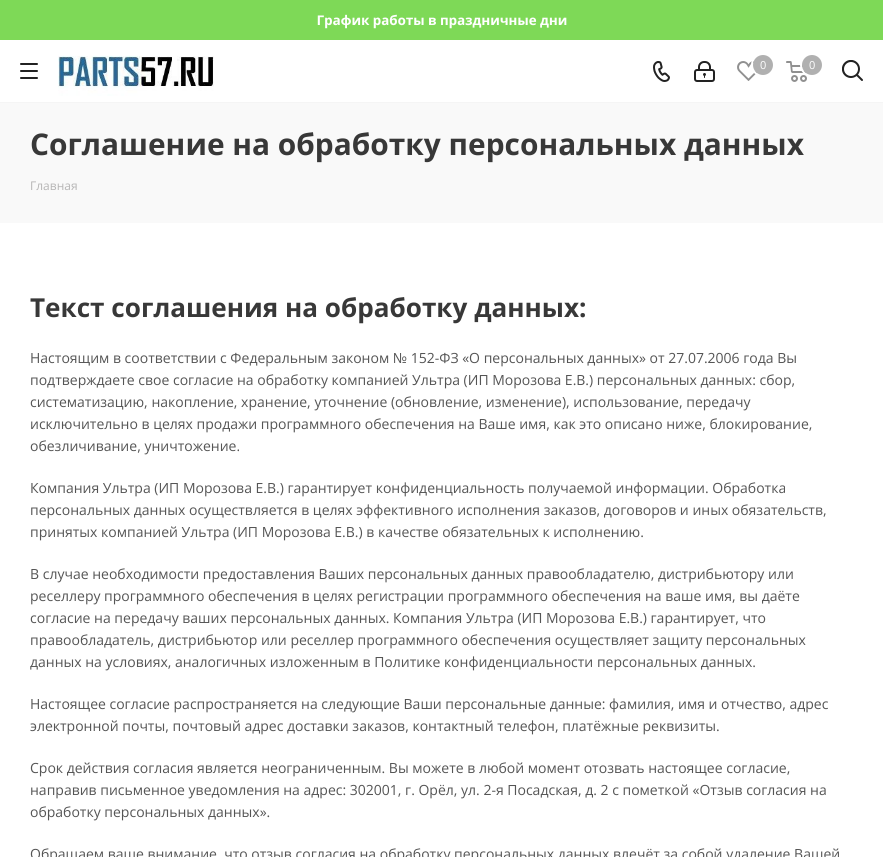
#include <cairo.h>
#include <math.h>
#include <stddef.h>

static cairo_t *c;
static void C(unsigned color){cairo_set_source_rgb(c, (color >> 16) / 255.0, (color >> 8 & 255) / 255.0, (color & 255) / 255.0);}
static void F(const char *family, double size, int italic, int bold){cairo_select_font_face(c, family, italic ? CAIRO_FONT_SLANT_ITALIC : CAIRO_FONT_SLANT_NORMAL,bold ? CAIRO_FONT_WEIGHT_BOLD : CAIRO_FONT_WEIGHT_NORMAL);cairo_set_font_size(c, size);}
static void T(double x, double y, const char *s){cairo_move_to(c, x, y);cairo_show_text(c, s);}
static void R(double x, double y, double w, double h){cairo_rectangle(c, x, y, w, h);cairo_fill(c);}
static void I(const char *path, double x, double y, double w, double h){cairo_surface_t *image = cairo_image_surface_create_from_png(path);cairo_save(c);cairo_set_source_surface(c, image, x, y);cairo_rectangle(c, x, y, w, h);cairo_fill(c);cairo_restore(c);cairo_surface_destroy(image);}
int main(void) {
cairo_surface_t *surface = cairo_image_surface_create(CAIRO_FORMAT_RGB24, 883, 857);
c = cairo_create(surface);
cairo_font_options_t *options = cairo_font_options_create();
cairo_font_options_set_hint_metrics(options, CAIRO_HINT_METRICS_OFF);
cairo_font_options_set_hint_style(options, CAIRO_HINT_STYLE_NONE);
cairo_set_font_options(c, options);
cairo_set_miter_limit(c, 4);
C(0xffffff);
cairo_paint(c);
I("1.png",0,0,883,40);
C(0xf5f5f5);
R(0,102,883,1);
I("2.png",20,63,18,16);
I("3.png",58,46,156,50);
I("4.png",653,61,17,21);
I("5.png",694,61,21,21);
I("6.png",737,61,20,20);
cairo_arc(c,763,65,11,0,2 * M_PI);
C(0xffffff);
cairo_stroke(c);
C(0xb0b0b0);
cairo_arc(c,763,65,10,0,2 * M_PI);
cairo_fill(c);
F("Open Sans",11,0,0);
C(0xffffff);
T(760,69,"0");
I("7.png",786,61,21,21);
cairo_arc(c,812,65,11,0,2 * M_PI);
cairo_stroke(c);
C(0xb0b0b0);
cairo_arc(c,812,65,10,0,2 * M_PI);
cairo_fill(c);
C(0xffffff);
T(809,69,"0");
I("8.png",842,60,21,21);
C(0xf9f9f9);
R(0,103,883,120);
F("Open Sans",29.85,0,1);
C(0x383838);
T(30,155,"Соглашение на обработку персональных данных");
F("Open Sans",12,0,0);
C(0xb6b5b5);
T(30,190,"Главная");
F("Open Sans",26.1,0,1);
C(0x383838);
T(30,317,"Текст соглашения на обработку данных:");
F("Open Sans",14,0,0);
C(0x555555);
T(30,363,"Настоящим в соответствии с Федеральным законом № 152-ФЗ «О персональных данных» от 27.07.2006 года Вы");
T(30,385,"подтверждаете свое согласие на обработку компанией Ультра (ИП Морозова Е.В.) персональных данных: сбор,");
T(30,407,"систематизацию, накопление, хранение, уточнение (обновление, изменение), использование, передачу");
T(30,429,"исключительно в целях продажи программного обеспечения на Ваше имя, как это описано ниже, блокирование,");
T(30,451,"обезличивание, уничтожение.");
T(30,493,"Компания Ультра (ИП Морозова Е.В.) гарантирует конфиденциальность получаемой информации. Обработка");
T(30,515,"персональных данных осуществляется в целях эффективного исполнения заказов, договоров и иных обязательств,");
T(30,537,"принятых компанией Ультра (ИП Морозова Е.В.) в качестве обязательных к исполнению.");
T(30,579,"В случае необходимости предоставления Ваших персональных данных правообладателю, дистрибьютору или");
T(30,601,"реселлеру программного обеспечения в целях регистрации программного обеспечения на ваше имя, вы даёте");
T(30,623,"согласие на передачу ваших персональных данных. Компания Ультра (ИП Морозова Е.В.) гарантирует, что");
T(30,645,"правообладатель, дистрибьютор или реселлер программного обеспечения осуществляет защиту персональных");
T(30,667,"данных на условиях, аналогичных изложенным в Политике конфиденциальности персональных данных.");
T(30,709,"Настоящее согласие распространяется на следующие Ваши персональные данные: фамилия, имя и отчество, адрес");
T(30,731,"электронной почты, почтовый адрес доставки заказов, контактный телефон, платёжные реквизиты.");
T(30,773,"Срок действия согласия является неограниченным. Вы можете в любой момент отозвать настоящее согласие,");
T(30,795,"направив письменное уведомления на адрес: 302001, г. Орёл, ул. 2-я Посадская, д. 2 с пометкой «Отзыв согласия на");
T(30,817,"обработку персональных данных».");
T(30,859,"Обращаем ваше внимание, что отзыв согласия на обработку персональных данных влечёт за собой удаление Вашей");
cairo_surface_write_to_png(surface, "o.png");
cairo_font_options_destroy(options);
cairo_destroy(c);
cairo_surface_destroy(surface);
return 0;
}
